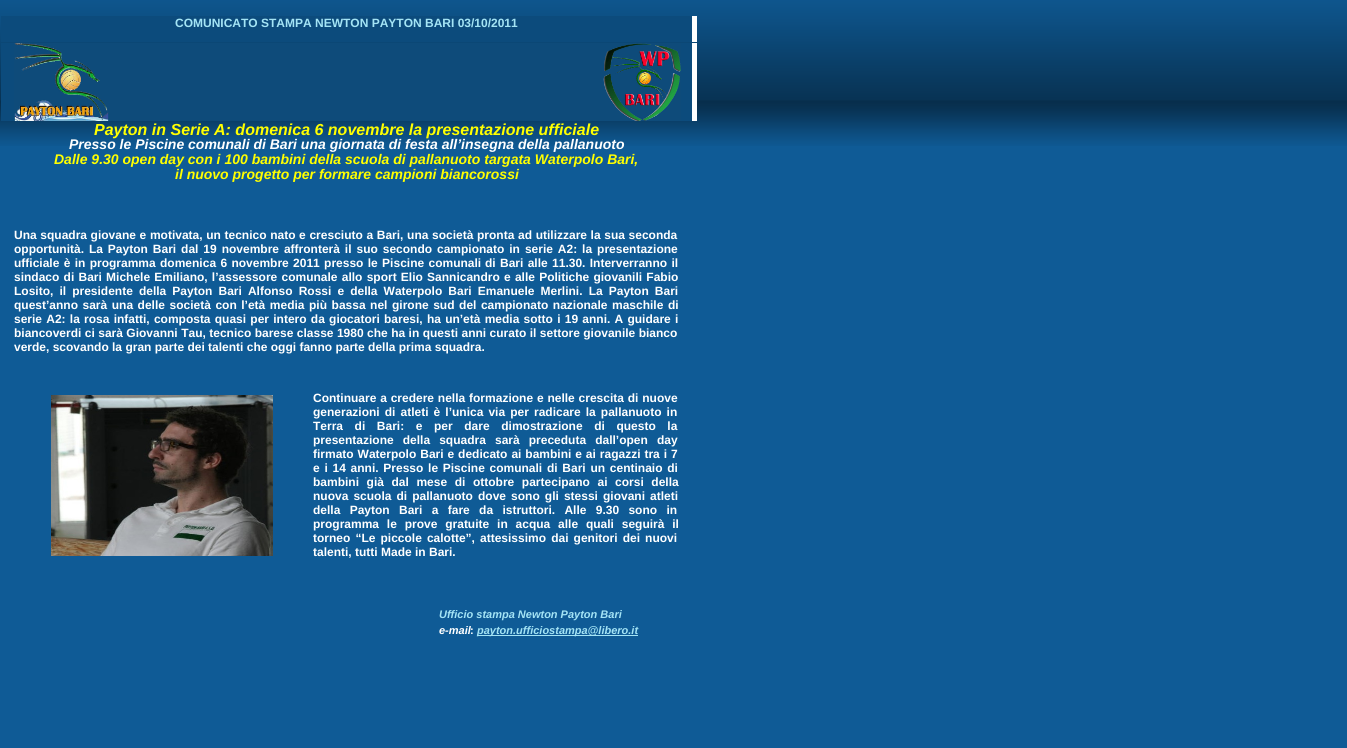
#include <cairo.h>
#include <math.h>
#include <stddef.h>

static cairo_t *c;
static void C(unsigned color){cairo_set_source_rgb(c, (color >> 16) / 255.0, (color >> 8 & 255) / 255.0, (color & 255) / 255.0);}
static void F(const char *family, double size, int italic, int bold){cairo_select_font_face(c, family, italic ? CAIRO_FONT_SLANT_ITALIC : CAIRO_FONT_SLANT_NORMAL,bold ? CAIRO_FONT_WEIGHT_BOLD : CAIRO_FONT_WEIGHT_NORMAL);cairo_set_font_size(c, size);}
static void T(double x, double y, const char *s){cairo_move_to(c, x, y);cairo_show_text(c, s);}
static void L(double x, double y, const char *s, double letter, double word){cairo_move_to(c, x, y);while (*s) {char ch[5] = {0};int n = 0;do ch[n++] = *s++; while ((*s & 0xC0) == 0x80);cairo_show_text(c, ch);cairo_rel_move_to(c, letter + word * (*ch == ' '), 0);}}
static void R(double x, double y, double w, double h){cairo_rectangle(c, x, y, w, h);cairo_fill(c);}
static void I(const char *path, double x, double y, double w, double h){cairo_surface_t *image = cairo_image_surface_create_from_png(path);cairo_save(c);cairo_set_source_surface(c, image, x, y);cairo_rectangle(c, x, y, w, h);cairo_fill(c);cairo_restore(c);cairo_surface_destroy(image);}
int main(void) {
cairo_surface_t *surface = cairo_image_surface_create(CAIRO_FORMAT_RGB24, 1347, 748);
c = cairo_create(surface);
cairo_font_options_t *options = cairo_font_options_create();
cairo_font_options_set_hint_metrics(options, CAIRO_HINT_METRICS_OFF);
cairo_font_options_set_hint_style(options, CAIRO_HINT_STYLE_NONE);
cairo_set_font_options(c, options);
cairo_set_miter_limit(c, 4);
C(0x0f5b96);
cairo_paint(c);
I("1.png",0,0,1347,146);
C(0xffffff);
R(692,16,5,26);
C(0x0c4b7c);
R(1,16,691,26);
F("Liberation Sans",12,0,1);
C(0xa4e4f5);
T(175,27,"COMUNICATO STAMPA NEWTON PAYTON BARI 03/10/2011");
C(0xffffff);
R(692,43,5,78);
C(0x0c4b7c);
R(1,43,691,78);
I("2.png",14,43,667,78);
F("Liberation Sans",16,1,1);
C(0xffff00);
T(94,135,"Payton in Serie A: domenica 6 novembre la presentazione ufficiale");
F("Liberation Sans",14,1,1);
C(0xffffff);
T(69,149,"Presso le Piscine comunali di Bari una giornata di festa all’insegna della pallanuoto");
C(0xffff00);
T(54,164,"Dalle 9.30 open day con i 100 bambini della scuola di pallanuoto targata Waterpolo Bari,");
T(175,179,"il nuovo progetto per formare campioni biancorossi");
F("Liberation Sans",12,0,1);
C(0xffffff);
L(14,239,"Una squadra giovane e motivata, un tecnico nato e cresciuto a Bari, una società pronta ad utilizzare la sua seconda",0,.3);
L(14,253,"opportunità. La Payton Bari dal 19 novembre affronterà il suo secondo campionato in serie A2: la presentazione",0,1.6);
L(14,267,"ufficiale è in programma domenica 6 novembre 2011 presso le Piscine comunali",0,1);
L(485,267,"di Bari alle 11.30. Interverranno il",0,1);
L(14,281,"sindaco di Bari Michele Emiliano, l’assessore comunale allo sport Elio Sannicandro e alle Politiche giovanili Fabio",0,.9);
L(14,295,"Losito, il presidente della Payton Bari Alfonso Rossi e della Waterpolo Bari Emanuele Merlini. La Payton Bari",0,2.75);
L(14,309,"quest’anno sarà una delle società con l’età media più bassa nel girone sud del campionato nazionale maschile di",0,1.2);
L(14,323,"serie A2: la rosa infatti, composta quasi per intero da giocatori baresi, ha un’età media sotto i 19 anni. A guidare i",0,.9);
L(14,337,"biancoverdi ci sarà Giovanni Tau, tecnico barese classe 1980 che ha in questi anni curato il settore giovanile bianco",0,.1);
T(14,351,"verde, scovando la gran parte dei talenti che oggi fanno parte della prima squadra.");
I("3.png",51,395,222,161);
L(313,402,"Continuare a credere nella formazione e nelle crescita di nuove",0,.5);
L(313,416,"generazioni di atleti è l’unica via per radicare la pallanuoto in",0,1.75);
L(313,430,"Terra di Bari: e per dare dimostrazione di questo la",0,8.25);
L(313,444,"presentazione della squadra sarà preceduta dall’open day",0,5.75);
L(313,458,"firmato Waterpolo Bari e dedicato ai bambini e ai ragazzi tra i 7",0,.6);
L(313,472,"e i 14 anni. Presso le Piscine comunali di Bari un centinaio di",0,1.4);
L(313,486,"bambini già dal mese di ottobre partecipano ai corsi della",0,4.25);
L(313,500,"nuova scuola di pallanuoto dove sono gli stessi giovani atleti",0,1.75);
L(313,514,"della Payton Bari a fare da istruttori. Alle 9.30 sono in",0,6);
L(313,528,"programma le prove gratuite in acqua alle quali seguirà il",0,4.5);
L(313,542,"torneo “Le piccole calotte”, attesissimo dai genitori dei nuovi",0,1.75);
T(313,556,"talenti, tutti Made in Bari.");
F("Liberation Sans",11,1,1);
C(0xa4e4f5);
T(439,618,"Ufficio stampa Newton Payton Bari");
C(0xffffff);
T(439,634,"e-mail");
F("Liberation Sans",11,0,1);
T(470,634,":");
C(0xa4e4f5);
R(477,635,161,1);
F("Liberation Sans",11,1,1);
T(477,634,"payton.ufficiostampa@libero.it");
cairo_surface_write_to_png(surface, "o.png");
cairo_font_options_destroy(options);
cairo_destroy(c);
cairo_surface_destroy(surface);
return 0;
}
